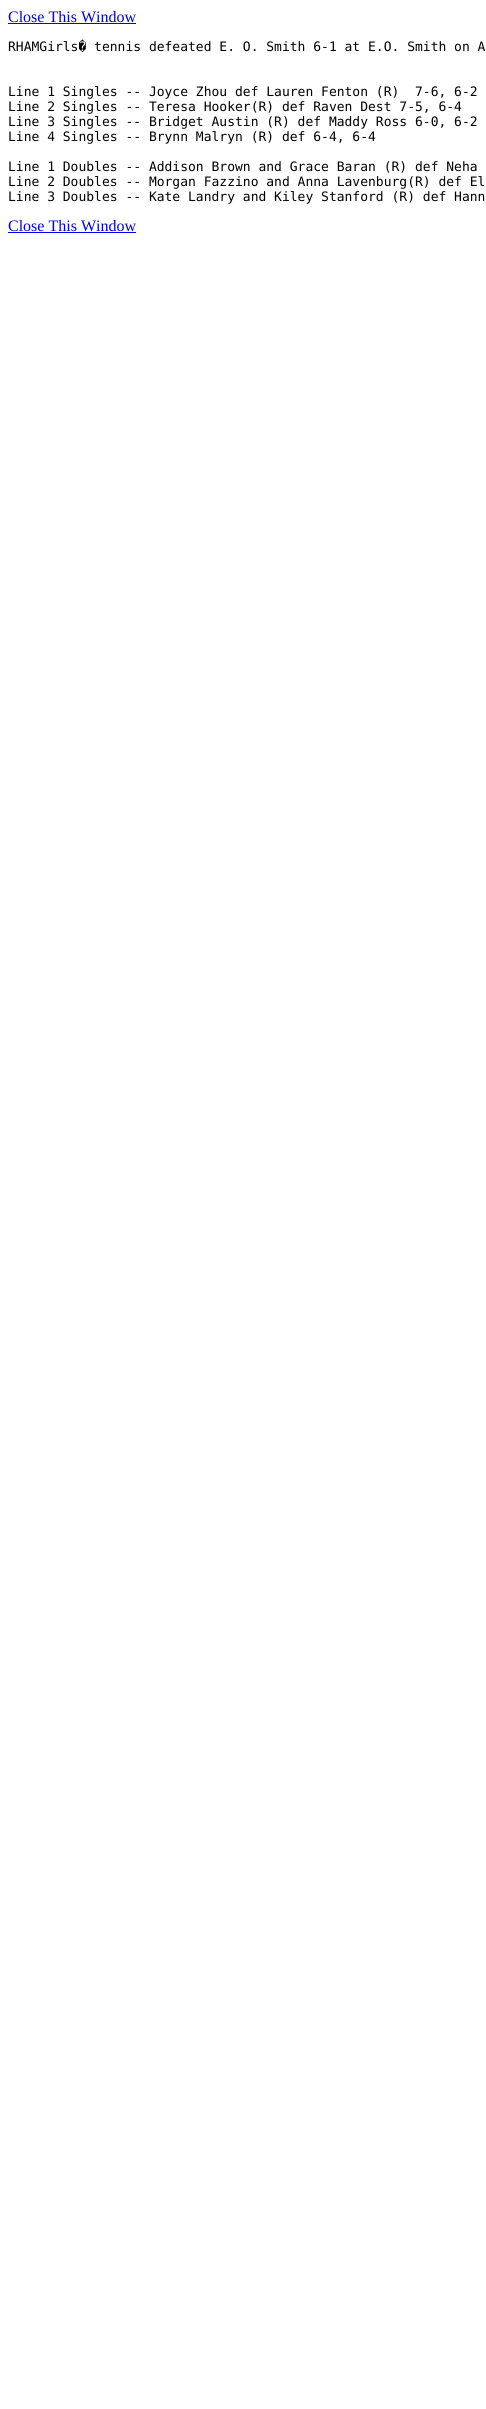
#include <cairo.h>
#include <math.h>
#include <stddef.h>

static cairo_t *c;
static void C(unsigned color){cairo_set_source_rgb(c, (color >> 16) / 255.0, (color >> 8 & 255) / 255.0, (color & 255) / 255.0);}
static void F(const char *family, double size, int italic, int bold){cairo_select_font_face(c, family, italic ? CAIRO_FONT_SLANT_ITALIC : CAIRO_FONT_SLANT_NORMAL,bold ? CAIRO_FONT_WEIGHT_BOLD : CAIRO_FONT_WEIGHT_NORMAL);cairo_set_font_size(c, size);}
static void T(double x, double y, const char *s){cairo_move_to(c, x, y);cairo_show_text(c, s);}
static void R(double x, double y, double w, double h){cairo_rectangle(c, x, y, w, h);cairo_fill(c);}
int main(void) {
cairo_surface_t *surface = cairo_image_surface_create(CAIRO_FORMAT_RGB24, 486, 2409);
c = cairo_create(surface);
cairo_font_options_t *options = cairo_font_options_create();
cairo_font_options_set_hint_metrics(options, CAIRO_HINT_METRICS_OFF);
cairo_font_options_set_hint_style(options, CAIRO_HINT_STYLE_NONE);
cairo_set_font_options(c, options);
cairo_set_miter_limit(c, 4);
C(0xffffff);
cairo_paint(c);
F("Liberation Serif",16,0,0);
C(0x0000ee);
T(8,22,"Close This Window");
R(8,23,128,1);
F("DejaVu Sans Mono",13,0,0);
C(0x000000);
T(8,51,"RHAMGirls� tennis defeated E. O. Smith 6-1 at E.O. Smith on A");
T(8,96,"Line 1 Singles -- Joyce Zhou def Lauren Fenton (R)  7-6, 6-2");
T(8,111,"Line 2 Singles -- Teresa Hooker(R) def Raven Dest 7-5, 6-4");
T(8,126,"Line 3 Singles -- Bridget Austin (R) def Maddy Ross 6-0, 6-2");
T(8,141,"Line 4 Singles -- Brynn Malryn (R) def 6-4, 6-4");
T(8,171,"Line 1 Doubles -- Addison Brown and Grace Baran (R) def Neha");
T(8,186,"Line 2 Doubles -- Morgan Fazzino and Anna Lavenburg(R) def El");
T(8,201,"Line 3 Doubles -- Kate Landry and Kiley Stanford (R) def Hann");
F("Liberation Serif",16,0,0);
C(0x0000ee);
T(8,231,"Close This Window");
R(8,232,128,1);
cairo_surface_write_to_png(surface, "o.png");
cairo_font_options_destroy(options);
cairo_destroy(c);
cairo_surface_destroy(surface);
return 0;
}
